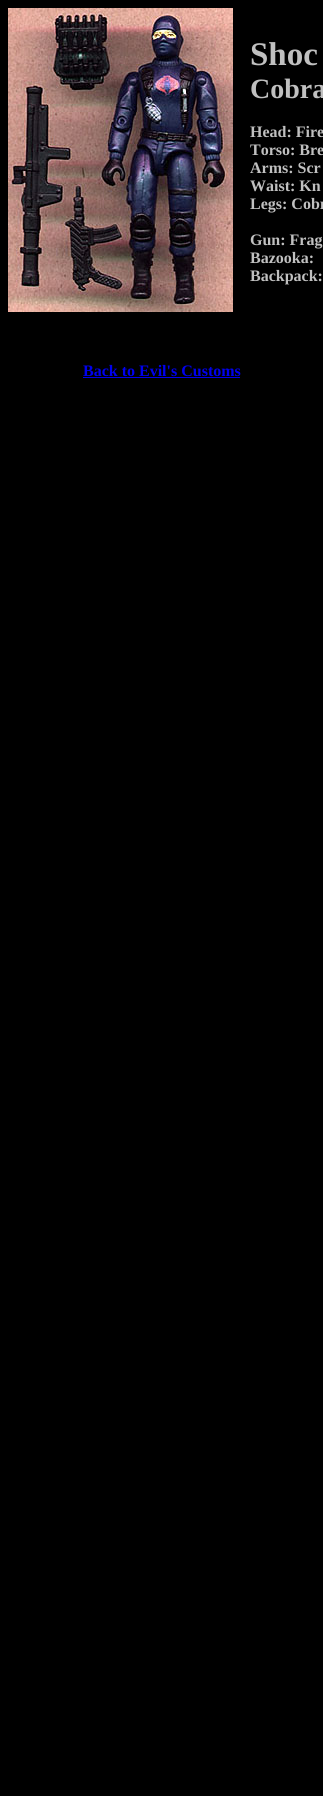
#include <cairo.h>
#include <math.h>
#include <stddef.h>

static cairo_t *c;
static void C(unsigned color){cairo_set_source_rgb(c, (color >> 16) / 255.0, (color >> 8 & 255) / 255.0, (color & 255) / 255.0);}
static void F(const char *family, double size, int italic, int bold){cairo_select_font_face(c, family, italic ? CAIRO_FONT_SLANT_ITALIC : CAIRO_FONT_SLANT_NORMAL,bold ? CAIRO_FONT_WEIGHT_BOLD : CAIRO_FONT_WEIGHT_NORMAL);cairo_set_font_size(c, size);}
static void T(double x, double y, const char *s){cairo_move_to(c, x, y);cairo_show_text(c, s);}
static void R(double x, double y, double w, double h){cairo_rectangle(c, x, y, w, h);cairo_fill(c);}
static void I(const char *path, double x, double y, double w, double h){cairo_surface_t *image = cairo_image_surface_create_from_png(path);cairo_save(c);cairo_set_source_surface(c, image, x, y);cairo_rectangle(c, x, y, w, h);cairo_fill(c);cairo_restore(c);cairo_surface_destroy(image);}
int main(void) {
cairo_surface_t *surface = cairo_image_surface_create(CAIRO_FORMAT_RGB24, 323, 1796);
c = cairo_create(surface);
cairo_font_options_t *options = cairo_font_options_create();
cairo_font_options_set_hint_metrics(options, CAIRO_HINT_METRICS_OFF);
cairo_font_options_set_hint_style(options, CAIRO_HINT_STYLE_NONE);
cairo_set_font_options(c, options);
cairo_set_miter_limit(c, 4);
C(0x000000);
cairo_paint(c);
I("1.png",8,8,225,304);
F("Liberation Serif",33,0,1);
C(0xc0c0c0);
T(250,65,"Shoc");
F("Liberation Serif",28,0,1);
T(250,98,"Cobra");
F("Liberation Serif",16,0,1);
T(250,137,"Head: Fire");
T(250,155,"Torso: Bre");
T(250,173,"Arms: Scr");
T(250,191,"Waist: Kn");
T(250,209,"Legs: Cobr");
T(250,245,"Gun: Frag");
T(250,263,"Bazooka:");
T(250,281,"Backpack:");
C(0x0000ee);
T(83,376,"Back to Evil's Customs");
R(83,377,157,1);
cairo_surface_write_to_png(surface, "o.png");
cairo_font_options_destroy(options);
cairo_destroy(c);
cairo_surface_destroy(surface);
return 0;
}
